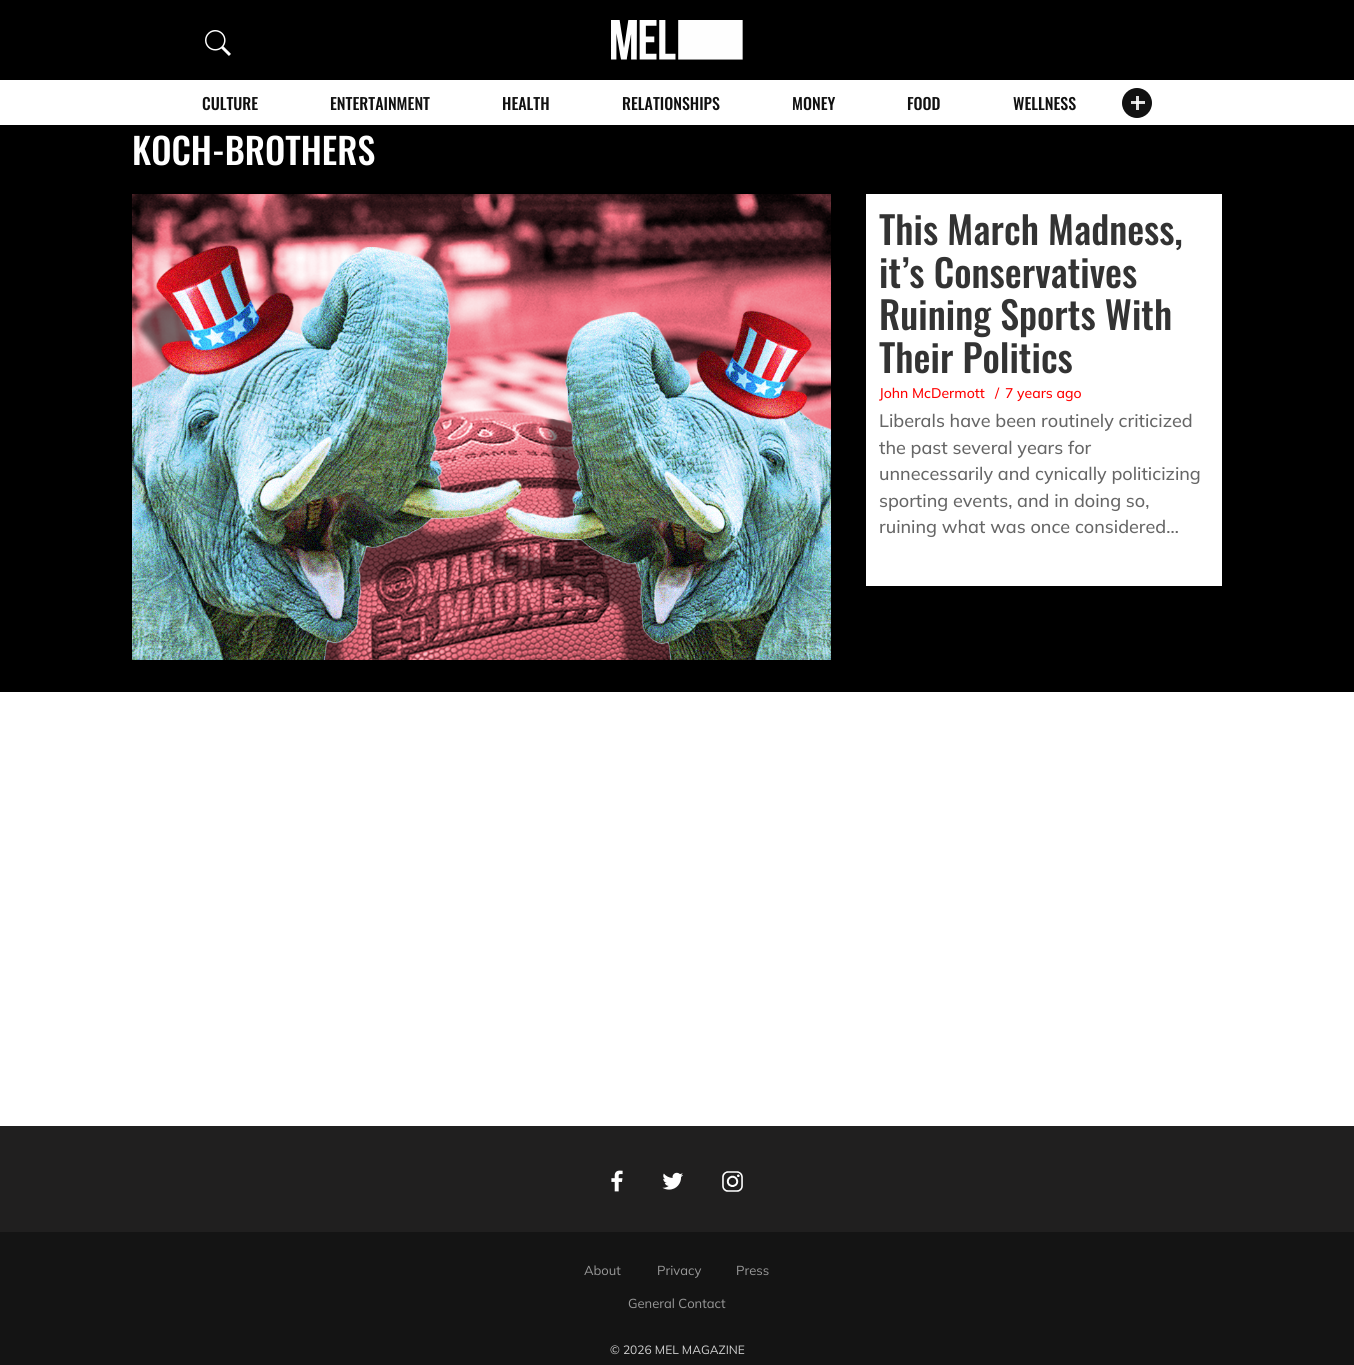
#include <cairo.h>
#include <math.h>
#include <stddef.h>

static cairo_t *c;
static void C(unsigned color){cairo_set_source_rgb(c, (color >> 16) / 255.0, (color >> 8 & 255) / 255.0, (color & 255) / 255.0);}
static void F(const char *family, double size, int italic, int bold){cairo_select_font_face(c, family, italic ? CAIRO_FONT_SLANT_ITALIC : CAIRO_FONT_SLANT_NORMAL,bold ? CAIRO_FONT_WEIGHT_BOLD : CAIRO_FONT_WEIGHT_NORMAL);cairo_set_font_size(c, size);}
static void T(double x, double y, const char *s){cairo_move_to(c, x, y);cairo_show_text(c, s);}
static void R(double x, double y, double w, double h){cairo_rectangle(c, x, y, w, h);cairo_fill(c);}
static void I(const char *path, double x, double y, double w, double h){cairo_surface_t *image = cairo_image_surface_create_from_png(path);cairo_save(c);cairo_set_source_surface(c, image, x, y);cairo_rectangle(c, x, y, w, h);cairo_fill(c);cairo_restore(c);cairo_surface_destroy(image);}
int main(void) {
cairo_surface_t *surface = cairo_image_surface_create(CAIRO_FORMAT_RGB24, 1354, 1365);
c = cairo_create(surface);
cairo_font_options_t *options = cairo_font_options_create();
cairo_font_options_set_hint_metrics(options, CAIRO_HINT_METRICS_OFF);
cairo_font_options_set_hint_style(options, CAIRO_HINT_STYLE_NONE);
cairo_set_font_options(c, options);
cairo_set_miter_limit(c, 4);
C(0xffffff);
cairo_paint(c);
C(0x000000);
R(0,0,1354,80);
I("1.png",205,30,26,26);
I("2.png",611,20,132,40);
F("Oswald Medium",16,0,0);
C(0x111111);
T(202,110,"CULTURE");
T(330,110,"ENTERTAINMENT");
T(502,110,"HEALTH");
T(622,110,"RELATIONSHIPS");
T(792,110,"MONEY");
T(907,110,"FOOD");
T(1013,110,"WELLNESS");
cairo_new_path(c);
cairo_arc(c,1137,103,15,0,2 * M_PI);
cairo_fill(c);
C(0xe0e0e0);
R(1131,101,14,3);
C(0xdfdfdf);
R(1136,96,3,14);
C(0xfbfbfb);
R(1136,101,3,3);
C(0x000000);
R(0,125,1354,567);
F("Oswald Medium",36,0,0);
C(0xffffff);
T(132,165,"KOCH-BROTHERS");
I("3.png",132,194,699,466);
R(866,194,356,392);
F("Oswald Medium",38,0,0);
C(0x333333);
T(879,245,"This March Madness,");
T(879,288,"it’s Conservatives");
T(879,330,"Ruining Sports With");
T(879,373,"Their Politics");
F("Mulish Medium",14,0,0);
C(0xff0000);
T(879,398,"John McDermott");
T(995,398,"/");
T(1005,398,"7 years ago");
F("Mulish Medium",18,0,0);
C(0x666666);
T(879,427,"Liberals have been routinely criticized");
T(879,454,"the past several years for");
T(879,480,"unnecessarily and cynically politicizing");
T(879,507,"sporting events, and in doing so,");
T(879,533,"ruining what was once considered…");
C(0x201f1f);
R(0,1126,1354,106);
I("4.png",611,1170,12,22);
I("5.png",662,1172,21,18);
I("6.png",722,1171,21,21);
C(0x141414);
R(0,1232,1354,133);
F("Mulish",13,0,0);
C(0x999999);
T(584,1275,"About");
T(657,1275,"Privacy");
T(736,1275,"Press");
T(628,1308,"General Contact");
F("Mulish",12,0,0);
C(0xd0d0d0);
T(610,1354,"© 2026 MEL MAGAZINE");
cairo_surface_write_to_png(surface, "o.png");
cairo_font_options_destroy(options);
cairo_destroy(c);
cairo_surface_destroy(surface);
return 0;
}
